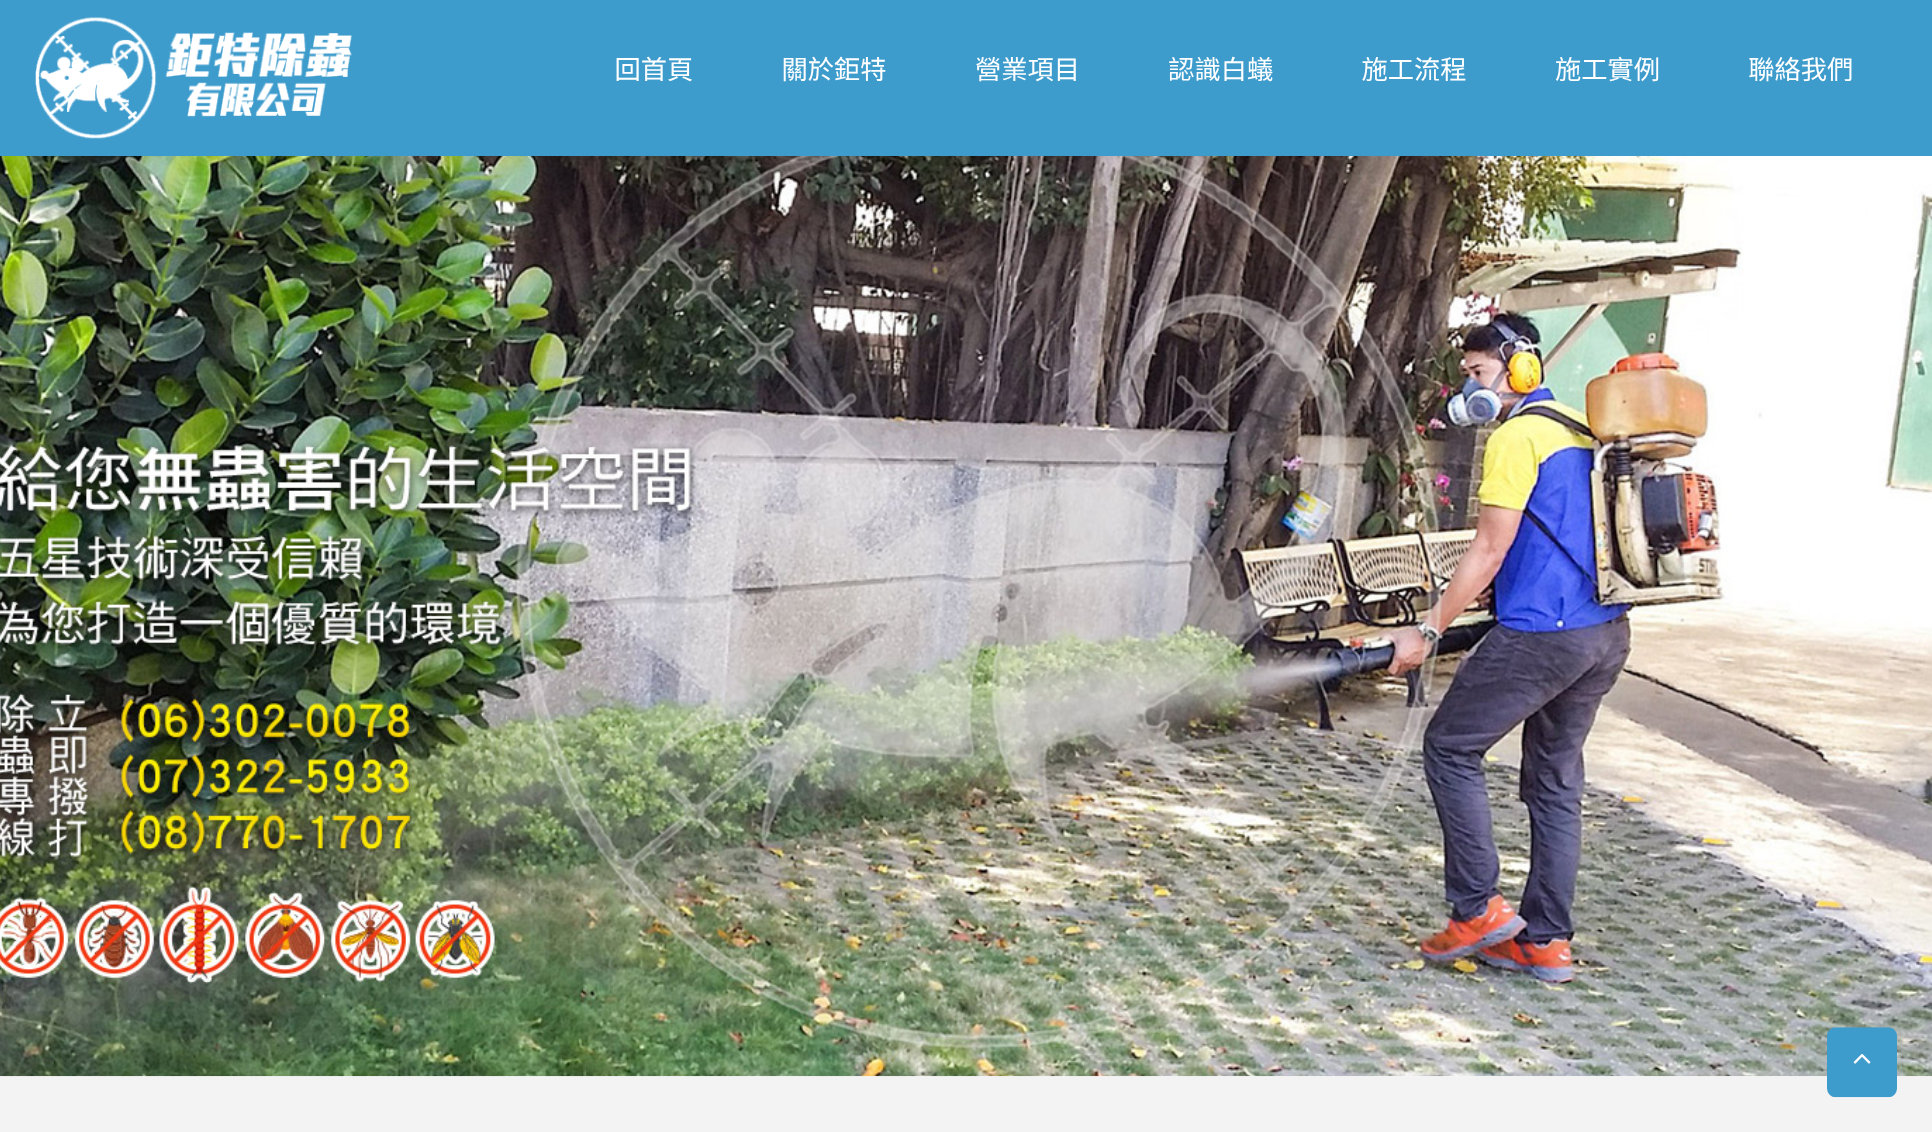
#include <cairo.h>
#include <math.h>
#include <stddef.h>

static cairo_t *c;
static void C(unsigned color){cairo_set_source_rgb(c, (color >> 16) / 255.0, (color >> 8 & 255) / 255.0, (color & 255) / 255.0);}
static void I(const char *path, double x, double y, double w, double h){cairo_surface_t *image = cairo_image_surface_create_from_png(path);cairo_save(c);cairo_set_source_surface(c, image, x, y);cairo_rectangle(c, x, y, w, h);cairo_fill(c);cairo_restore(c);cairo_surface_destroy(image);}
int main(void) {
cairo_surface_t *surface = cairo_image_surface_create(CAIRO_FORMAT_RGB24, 1932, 1132);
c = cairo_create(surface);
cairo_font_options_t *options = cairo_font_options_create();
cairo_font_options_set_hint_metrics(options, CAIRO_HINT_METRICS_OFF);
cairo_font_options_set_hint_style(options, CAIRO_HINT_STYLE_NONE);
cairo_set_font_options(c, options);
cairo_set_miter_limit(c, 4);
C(0xffffff);
cairo_paint(c);
I("1.png",0,0,1932,1132);
cairo_surface_write_to_png(surface, "o.png");
cairo_font_options_destroy(options);
cairo_destroy(c);
cairo_surface_destroy(surface);
return 0;
}
